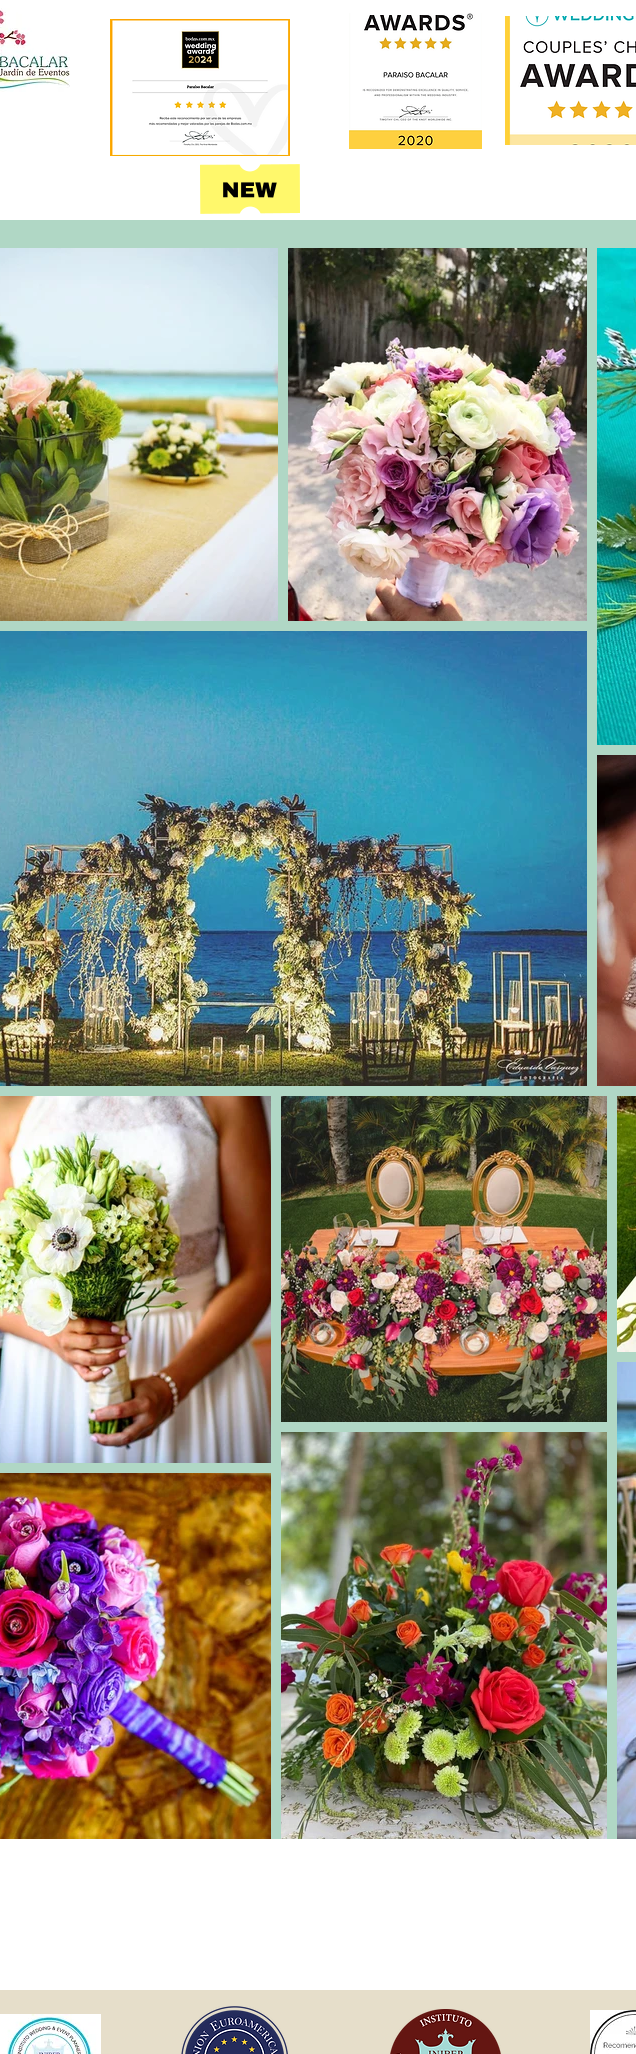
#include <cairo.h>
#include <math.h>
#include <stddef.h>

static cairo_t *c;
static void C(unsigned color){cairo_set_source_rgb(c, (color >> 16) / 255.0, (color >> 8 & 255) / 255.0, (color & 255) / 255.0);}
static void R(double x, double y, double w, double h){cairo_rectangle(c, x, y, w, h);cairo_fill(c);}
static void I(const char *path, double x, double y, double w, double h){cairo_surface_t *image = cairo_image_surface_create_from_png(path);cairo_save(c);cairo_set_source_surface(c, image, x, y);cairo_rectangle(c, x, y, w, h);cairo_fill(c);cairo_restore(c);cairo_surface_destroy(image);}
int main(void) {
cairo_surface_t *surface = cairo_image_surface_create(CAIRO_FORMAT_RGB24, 636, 2054);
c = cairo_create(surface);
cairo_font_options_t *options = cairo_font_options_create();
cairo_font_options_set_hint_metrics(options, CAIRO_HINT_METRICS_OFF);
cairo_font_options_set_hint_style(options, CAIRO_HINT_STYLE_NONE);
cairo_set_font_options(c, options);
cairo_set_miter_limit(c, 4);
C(0xffffff);
cairo_paint(c);
I("1.png",0,8,70,84);
I("2.png",110,19,180,137);
I("3.png",349,13,133,136);
I("4.png",505,16,131,129);
I("5.png",200,164,100,50);
I("21.png",0,220,636,1619);
I("6.png",0,248,278,373);
I("7.png",288,248,299,373);
I("8.png",597,248,39,497);
I("9.png",0,631,587,455);
I("10.png",597,755,39,331);
I("11.png",0,1096,271,367);
I("12.png",281,1096,326,326);
I("13.png",617,1096,19,256);
I("14.png",0,1473,271,366);
I("15.png",281,1432,326,407);
I("16.png",617,1362,19,477);
C(0xe6deca);
R(0,1990,636,64);
I("17.png",0,2014,101,40);
I("18.png",181,2006,107,48);
I("19.png",390,2009,111,45);
I("20.png",590,2010,46,44);
cairo_surface_write_to_png(surface, "o.png");
cairo_font_options_destroy(options);
cairo_destroy(c);
cairo_surface_destroy(surface);
return 0;
}
